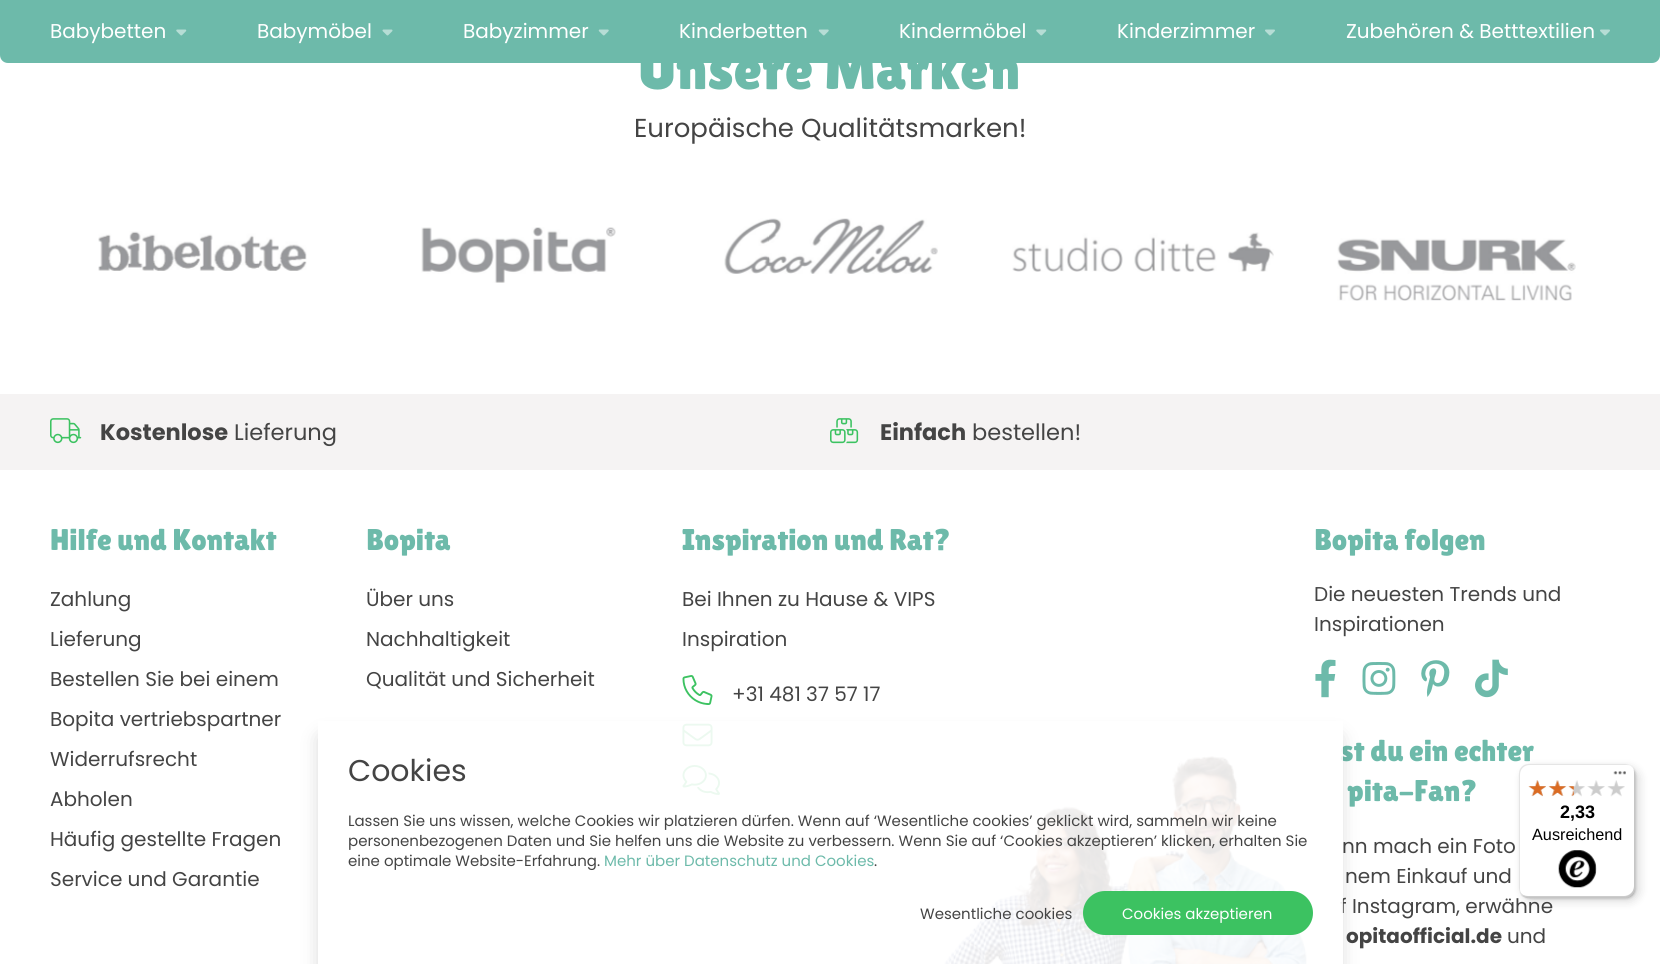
#include <cairo.h>
#include <math.h>
#include <stddef.h>

static cairo_t *c;
static void C(unsigned color){cairo_set_source_rgb(c, (color >> 16) / 255.0, (color >> 8 & 255) / 255.0, (color & 255) / 255.0);}
static void F(const char *family, double size, int italic, int bold){cairo_select_font_face(c, family, italic ? CAIRO_FONT_SLANT_ITALIC : CAIRO_FONT_SLANT_NORMAL,bold ? CAIRO_FONT_WEIGHT_BOLD : CAIRO_FONT_WEIGHT_NORMAL);cairo_set_font_size(c, size);}
static void T(double x, double y, const char *s){cairo_move_to(c, x, y);cairo_show_text(c, s);}
static void R(double x, double y, double w, double h){cairo_rectangle(c, x, y, w, h);cairo_fill(c);}
static void Q(double x, double y, double w, double h, double r){cairo_new_sub_path(c);cairo_arc(c, x + w - r, y + h - r, r, 0, M_PI / 2);cairo_arc(c, x + r, y + h - r, r, M_PI / 2, M_PI);cairo_arc(c, x + r, y + r, r, M_PI, 1.5 * M_PI);cairo_arc(c, x + w - r, y + r, r, 1.5 * M_PI, 2 * M_PI);cairo_close_path(c);}
static void S(double x, double y, double w, double h, double r, double blur, double alpha){cairo_push_group_with_content(c, CAIRO_CONTENT_ALPHA);cairo_set_operator(c, CAIRO_OPERATOR_SOURCE);for (int i = 15; i >= -15 && fmin(w, h) + blur * i / 3 > 0; i -= 2) {double e = blur * i / 6;cairo_set_source_rgba(c, 0, 0, 0, alpha * erfc((i - 1) / 8.5) / 2);Q(x - e, y - e, w + 2 * e, h + 2 * e, fmax(0, fmin(r + e + blur * .6, fmin(w, h) / 2 + e)));cairo_fill(c);}cairo_pattern_t *soft = cairo_pop_group(c);cairo_mask(c, soft);cairo_pattern_destroy(soft);}
static void I(const char *path, double x, double y, double w, double h){cairo_surface_t *image = cairo_image_surface_create_from_png(path);cairo_save(c);cairo_set_source_surface(c, image, x, y);cairo_rectangle(c, x, y, w, h);cairo_fill(c);cairo_restore(c);cairo_surface_destroy(image);}
int main(void) {
cairo_surface_t *surface = cairo_image_surface_create(CAIRO_FORMAT_RGB24, 1660, 964);
c = cairo_create(surface);
cairo_font_options_t *options = cairo_font_options_create();
cairo_font_options_set_hint_metrics(options, CAIRO_HINT_METRICS_OFF);
cairo_font_options_set_hint_style(options, CAIRO_HINT_STYLE_NONE);
cairo_set_font_options(c, options);
cairo_set_miter_limit(c, 4);
C(0xffffff);
cairo_paint(c);
C(0x6dbaaa);
cairo_new_path(c);
cairo_move_to(c,0,0);
cairo_line_to(c,1660,0);
cairo_line_to(c,1660,55);
cairo_curve_to(c,1660,59.5,1656.5,63,1652,63);
cairo_line_to(c,8,63);
cairo_curve_to(c,3.5,63,0,59.5,0,55);
cairo_close_path(c);
cairo_fill(c);
F("Poppins",20,0,0);
C(0xffffff);
T(50,38,"Babybetten");
I("1.png",176,29,11,7);
T(257,38,"Babymöbel");
I("2.png",382,29,11,7);
T(463,38,"Babyzimmer");
I("3.png",598,29,11,7);
T(679,38,"Kinderbetten");
I("3.png",818,29,11,7);
T(899,38,"Kindermöbel");
I("1.png",1036,29,11,7);
T(1117,38,"Kinderzimmer");
I("4.png",1265,29,10,7);
T(1346,38,"Zubehören & Betttextilien");
I("4.png",1600,29,10,7);
F("Lilita One",58,0,0);
C(0x6dbaaa);
T(639,89,"Unsere Marken");
F("Poppins",26,0,0);
C(0x444444);
T(634,137,"Europäische Qualitätsmarken!");
I("5.png",98,231,209,40);
I("6.png",421,227,195,56);
I("7.png",724,218,214,56);
I("8.png",1012,232,262,40);
I("9.png",1337,238,239,63);
C(0xf5f3f3);
R(0,394,1660,76);
I("10.png",50,418,32,26);
F("Poppins",22.5,0,1);
C(0x444444);
T(100,440,"Kostenlose");
F("Poppins",22.5,0,0);
T(234,440,"Lieferung");
I("11.png",830,418,29,26);
F("Poppins",22.5,0,1);
T(880,440,"Einfach");
F("Poppins",22.5,0,0);
T(972,440,"bestellen!");
F("Lilita One",30,0,0);
C(0x6dbaaa);
T(50,550,"Hilfe und Kontakt");
F("Poppins",20,0,0);
C(0x444444);
T(50,606,"Zahlung");
T(50,646,"Lieferung");
T(50,686,"Bestellen Sie bei einem");
T(50,726,"Bopita vertriebspartner");
T(50,766,"Widerrufsrecht");
T(50,806,"Abholen");
T(50,846,"Häufig gestellte Fragen");
T(50,886,"Service und Garantie");
F("Lilita One",30,0,0);
C(0x6dbaaa);
T(366,550,"Bopita");
F("Poppins",20,0,0);
C(0x444444);
T(366,606,"Über uns");
T(366,646,"Nachhaltigkeit");
T(366,686,"Qualität und Sicherheit");
F("Lilita One",30,0,0);
C(0x6dbaaa);
T(682,550,"Inspiration und Rat?");
F("Poppins",20,0,0);
C(0x444444);
T(682,606,"Bei Ihnen zu Hause & VIPS");
T(682,646,"Inspiration");
I("12.png",682,675,31,30);
T(732,701,"+31 481 37 57 17");
I("13.png",682,723,31,24);
I("14.png",682,765,38,30);
I("15.png",943,756,364,208);
F("Lilita One",30,0,0);
C(0x6dbaaa);
T(1314,550,"Bopita folgen");
F("Poppins",20,0,0);
C(0x444444);
T(1314,601,"Die neuesten Trends und");
T(1314,631,"Inspirationen");
I("16.png",1315,659,21,39);
I("17.png",1362,662,34,33);
I("18.png",1421,660,29,37);
I("19.png",1475,659,33,39);
F("Lilita One",30,0,0);
C(0x6dbaaa);
T(1340,761,"st du ein echter");
T(1347,801,"pita-Fan?");
F("Poppins",20,0,0);
C(0x444444);
T(1342,853,"nn mach ein Foto");
T(1345,883,"nem Einkauf und");
T(1340,913,"f Instagram, erwähne");
F("Poppins",20,0,1);
T(1346,943,"opitaofficial.de");
F("Poppins",20,0,0);
T(1507,943,"und");
cairo_save(c);
cairo_set_fill_rule(c,CAIRO_FILL_RULE_EVEN_ODD);
cairo_new_path(c);
cairo_move_to(c,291,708);
cairo_line_to(c,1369,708);
cairo_line_to(c,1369,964);
cairo_line_to(c,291,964);
cairo_close_path(c);
cairo_move_to(c,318,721);
cairo_line_to(c,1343,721);
cairo_line_to(c,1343,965);
cairo_line_to(c,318,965);
cairo_close_path(c);
cairo_clip(c);
C(0x000000);
S(321,738,1018,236,0,9.5,.2);
cairo_restore(c);
cairo_set_source_rgba(c,1,1,1,0.9);
R(682,723,661,241);
F("Poppins",30,0,0);
C(0x444444);
T(348,781,"Cookies");
F("Poppins",15,0,0);
T(348,826,"Lassen Sie uns wissen, welche Cookies wir platzieren dürfen. Wenn auf ‘Wesentliche cookies’ geklickt wird, sammeln wir keine");
T(348,846,"personenbezogenen Daten und Sie helfen uns die Website zu verbessern. Wenn Sie auf ‘Cookies akzeptieren’ klicken, erhalten Sie");
T(348,866,"eine optimale Website-Erfahrung.");
C(0x6dbaaa);
T(604,866,"Mehr über Datenschutz und Cookies");
C(0x444444);
T(874,866,".");
T(920,919,"Wesentliche cookies");
C(0x3cc261);
Q(1083,891,230,44,22);
cairo_fill(c);
C(0xffffff);
T(1122,919,"Cookies akzeptieren");
C(0x000000);
S(1523,768,116,133,10,5,.15);
S(1520,765,116,134,10,1,.15);
C(0xffffff);
Q(1519,764,116,134,10);
cairo_fill(c);
C(0xe5e5e5);
cairo_new_path(c);
cairo_move_to(c,1530,765);
cairo_line_to(c,1626,765);
cairo_curve_to(c,1628,765,1630,765,1631,766);
cairo_curve_to(c,1630,765,1627,764,1625,764);
cairo_line_to(c,1529,764);
cairo_curve_to(c,1523,764,1519,768,1519,774);
cairo_line_to(c,1519,888);
cairo_curve_to(c,1519,891,1520,894,1523,896);
cairo_curve_to(c,1521,894,1520,891,1520,889);
cairo_line_to(c,1520,775);
cairo_curve_to(c,1520,769,1524,765,1530,765);
cairo_close_path(c);
cairo_fill(c);
cairo_set_source_rgba(c,0,0,0,0.2);
cairo_new_path(c);
cairo_move_to(c,1520,892);
cairo_curve_to(c,1522,896,1525,898,1529,898);
cairo_line_to(c,1625,898);
cairo_curve_to(c,1631,898,1635,894,1635,888);
cairo_line_to(c,1635,774);
cairo_curve_to(c,1635,772,1634,770,1633,768);
cairo_curve_to(c,1634,769,1634,771,1634,772);
cairo_line_to(c,1634,886);
cairo_curve_to(c,1634,892,1629,896,1624,896);
cairo_line_to(c,1528,896);
cairo_curve_to(c,1525,896,1522,895,1520,892);
cairo_close_path(c);
cairo_fill(c);
cairo_set_source_rgba(c,0.196,0.196,0.196,0.2);
cairo_new_path(c);
cairo_move_to(c,1521,895);
cairo_curve_to(c,1523,897,1526,898,1529,898);
cairo_line_to(c,1625,898);
cairo_curve_to(c,1631,898,1635,894,1635,888);
cairo_line_to(c,1635,774);
cairo_curve_to(c,1635,772,1634,769,1633,768);
cairo_curve_to(c,1634,769,1634,771,1634,773);
cairo_line_to(c,1634,887);
cairo_curve_to(c,1634,892,1630,897,1624,897);
cairo_line_to(c,1528,897);
cairo_curve_to(c,1525,897,1523,896,1521,895);
cairo_close_path(c);
cairo_fill(c);
cairo_set_source_rgba(c,1,1,1,0.3);
cairo_new_path(c);
cairo_move_to(c,1520,893);
cairo_curve_to(c,1522,896,1525,898,1529,898);
cairo_line_to(c,1625,898);
cairo_curve_to(c,1631,898,1635,894,1635,888);
cairo_line_to(c,1635,774);
cairo_curve_to(c,1635,771,1634,768,1631,766);
cairo_curve_to(c,1633,768,1634,771,1634,773);
cairo_line_to(c,1634,887);
cairo_curve_to(c,1634,892,1630,897,1624,897);
cairo_line_to(c,1528,897);
cairo_curve_to(c,1525,897,1522,895,1520,893);
cairo_close_path(c);
cairo_fill(c);
I("20.png",1613,771,13,4);
I("24.png",1529,780,17,17);
I("21.png",1528,780,18,16);
I("25.png",1549,780,17,16);
I("22.png",1548,780,19,16);
I("26.png",1569,780,16,17);
I("23.png",1568,786,6,10);
I("27.png",1587,780,18,16);
I("28.png",1607,780,18,17);
F("Liberation Sans",18,0,1);
C(0x000000);
T(1560,818,"2,33");
F("Liberation Sans",16.25,0,0);
T(1532,840,"Ausreichend");
I("29.png",1558,850,39,38);
cairo_surface_write_to_png(surface, "o.png");
cairo_font_options_destroy(options);
cairo_destroy(c);
cairo_surface_destroy(surface);
return 0;
}
